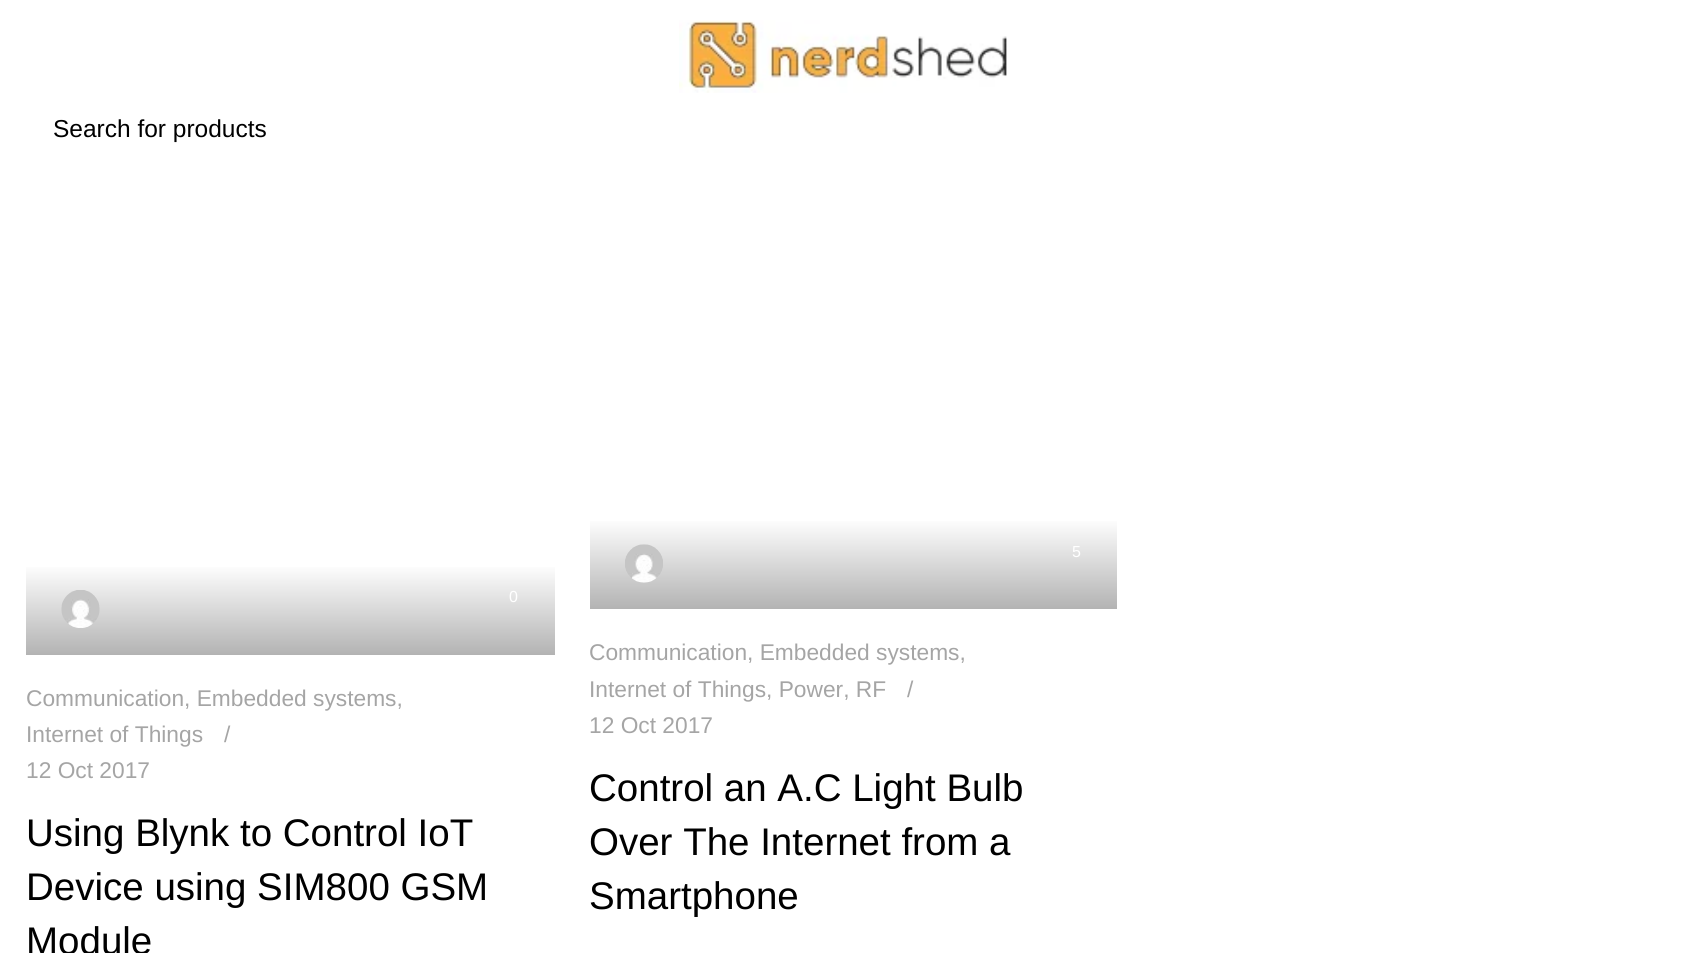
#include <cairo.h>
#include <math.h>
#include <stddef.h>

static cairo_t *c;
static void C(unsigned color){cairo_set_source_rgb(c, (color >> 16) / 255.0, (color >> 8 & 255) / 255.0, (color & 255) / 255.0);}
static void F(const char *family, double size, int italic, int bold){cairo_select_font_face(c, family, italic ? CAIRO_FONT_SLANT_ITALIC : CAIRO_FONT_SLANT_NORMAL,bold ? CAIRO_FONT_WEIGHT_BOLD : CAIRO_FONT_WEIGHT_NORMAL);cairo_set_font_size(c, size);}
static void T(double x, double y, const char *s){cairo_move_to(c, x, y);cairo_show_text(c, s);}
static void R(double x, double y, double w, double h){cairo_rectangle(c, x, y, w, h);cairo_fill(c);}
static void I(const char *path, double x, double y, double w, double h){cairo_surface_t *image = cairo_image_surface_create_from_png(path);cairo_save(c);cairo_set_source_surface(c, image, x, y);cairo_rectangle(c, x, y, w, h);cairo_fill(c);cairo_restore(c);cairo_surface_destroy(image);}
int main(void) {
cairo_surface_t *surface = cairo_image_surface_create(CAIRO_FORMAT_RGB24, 1706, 953);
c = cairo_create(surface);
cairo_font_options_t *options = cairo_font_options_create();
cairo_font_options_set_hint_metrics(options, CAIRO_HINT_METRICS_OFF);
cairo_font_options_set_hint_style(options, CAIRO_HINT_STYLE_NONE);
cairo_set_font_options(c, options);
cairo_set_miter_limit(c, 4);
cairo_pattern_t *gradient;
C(0xffffff);
cairo_paint(c);
F("Liberation Sans",24.5,0,0);
C(0x000000);
T(53,137,"Search for products");
I("1.png",679,20,328,73);
gradient = cairo_pattern_create_linear(291,564,291,655);
cairo_pattern_add_color_stop_rgba(gradient,0,1,1,1,1);
cairo_pattern_add_color_stop_rgba(gradient,1,0.702,0.702,0.702,1);
cairo_set_source(c,gradient);
cairo_pattern_destroy(gradient);
R(26,567,529,88);
I("2.png",61,590,39,38);
F("Liberation Sans",16,0,0);
C(0xffffff);
T(509,602,"0");
F("Liberation Sans",22.75,0,0);
C(0xa5a5a5);
T(26,706,"Communication, Embedded systems,");
T(26,742,"Internet of Things");
T(224,742,"/");
T(26,778,"12 Oct 2017");
F("Liberation Sans",38.5,0,0);
C(0x000000);
T(26,846,"Using Blynk to Control IoT");
T(26,900,"Device using SIM800 GSM");
T(26,954,"Module");
gradient = cairo_pattern_create_linear(853,518,853,609);
cairo_pattern_add_color_stop_rgba(gradient,0,1,1,1,1);
cairo_pattern_add_color_stop_rgba(gradient,1,0.702,0.702,0.702,1);
cairo_set_source(c,gradient);
cairo_pattern_destroy(gradient);
R(590,521,527,88);
I("3.png",625,544,38,39);
F("Liberation Sans",16,0,0);
C(0xffffff);
T(1072,557,"5");
F("Liberation Sans",22.75,0,0);
C(0xa5a5a5);
T(589,660,"Communication, Embedded systems,");
T(589,697,"Internet of Things, Power, RF");
T(907,697,"/");
T(589,733,"12 Oct 2017");
F("Liberation Sans",38.5,0,0);
C(0x000000);
T(589,801,"Control an A.C Light Bulb");
T(589,855,"Over The Internet from a");
T(589,909,"Smartphone");
cairo_surface_write_to_png(surface, "o.png");
cairo_font_options_destroy(options);
cairo_destroy(c);
cairo_surface_destroy(surface);
return 0;
}
